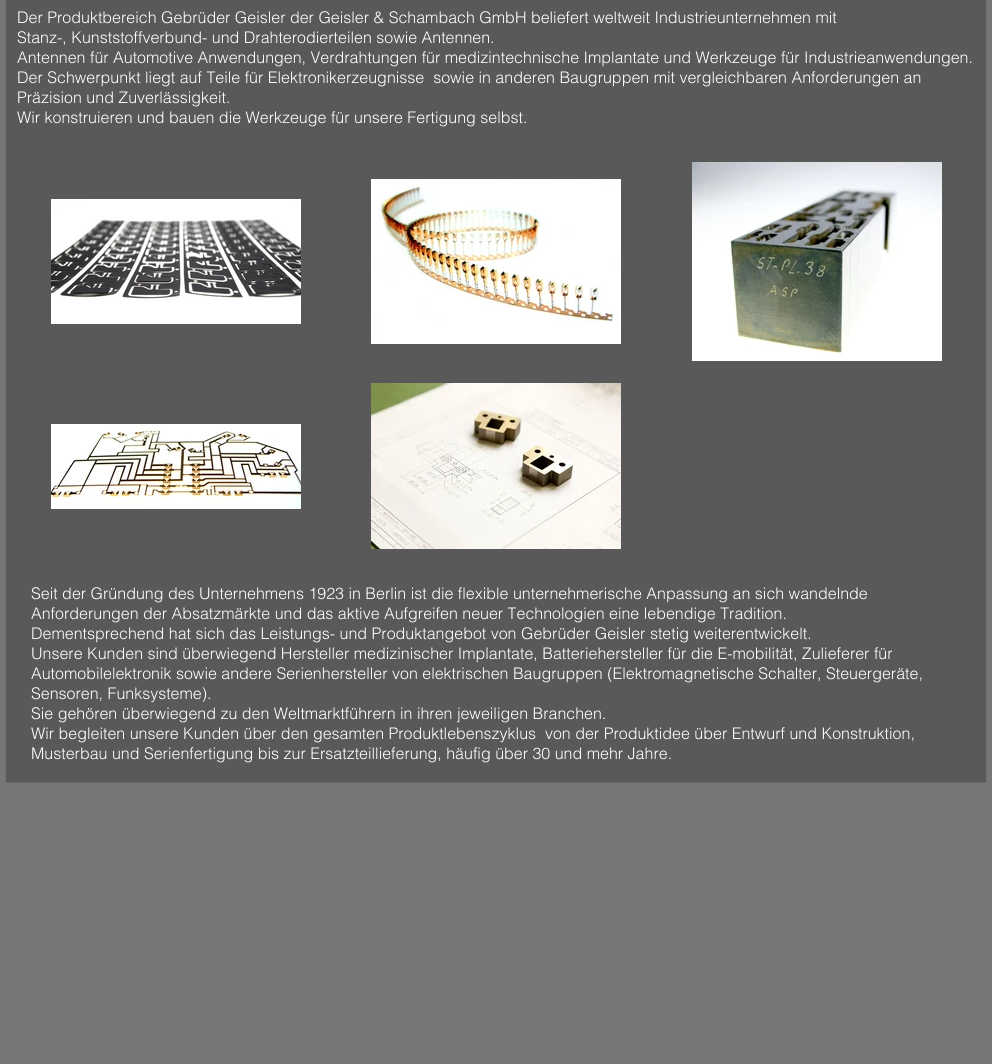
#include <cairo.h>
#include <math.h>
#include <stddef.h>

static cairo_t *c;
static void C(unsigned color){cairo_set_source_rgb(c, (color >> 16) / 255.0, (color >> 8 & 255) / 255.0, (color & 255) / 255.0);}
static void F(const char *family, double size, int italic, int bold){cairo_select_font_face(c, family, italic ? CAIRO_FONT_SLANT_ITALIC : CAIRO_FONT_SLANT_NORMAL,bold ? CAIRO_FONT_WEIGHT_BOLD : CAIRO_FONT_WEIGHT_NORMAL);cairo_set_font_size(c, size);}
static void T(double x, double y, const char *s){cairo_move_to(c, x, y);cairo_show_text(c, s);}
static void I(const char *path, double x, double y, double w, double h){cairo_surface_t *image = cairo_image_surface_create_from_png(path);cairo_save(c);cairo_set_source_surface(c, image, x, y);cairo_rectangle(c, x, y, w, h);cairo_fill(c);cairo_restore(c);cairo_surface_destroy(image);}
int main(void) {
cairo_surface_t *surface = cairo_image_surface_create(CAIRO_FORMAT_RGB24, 992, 1064);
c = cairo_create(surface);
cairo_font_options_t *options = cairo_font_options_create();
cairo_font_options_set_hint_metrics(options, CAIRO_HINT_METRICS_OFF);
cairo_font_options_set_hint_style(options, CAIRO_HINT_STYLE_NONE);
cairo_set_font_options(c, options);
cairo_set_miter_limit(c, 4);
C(0x767676);
cairo_paint(c);
C(0x595959);
cairo_rectangle(c,5.5,-.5,981,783);
cairo_fill_preserve(c);
C(0x6c6c6c);
cairo_set_line_width(c,1);
cairo_stroke(c);
F("helvetica Light",16,0,0);
C(0xffffff);
T(17,23,"Der Produktbereich Gebrüder Geisler der Geisler & Schambach GmbH beliefert weltweit Industrieunternehmen mit");
T(17,43,"Stanz-, Kunststoffverbund- und Drahterodierteilen sowie Antennen.");
T(17,63,"Antennen für Automotive Anwendungen, Verdrahtungen für medizintechnische Implantate und Werkzeuge für Industrieanwendungen.");
T(17,83,"Der Schwerpunkt liegt auf Teile für Elektronikerzeugnisse  sowie in anderen Baugruppen mit vergleichbaren Anforderungen an");
T(17,103,"Präzision und Zuverlässigkeit.");
T(17,123,"Wir konstruieren und bauen die Werkzeuge für unsere Fertigung selbst.");
I("1.png",51,199,250,125);
I("2.png",371,179,250,165);
I("3.png",692,162,250,199);
I("4.png",51,424,250,85);
I("5.png",371,383,250,166);
T(31,599,"Seit der Gründung des Unternehmens 1923 in Berlin ist die flexible unternehmerische Anpassung an sich wandelnde");
T(31,619,"Anforderungen der Absatzmärkte und das aktive Aufgreifen neuer Technologien eine lebendige Tradition.");
T(31,639,"Dementsprechend hat sich das Leistungs- und Produktangebot von Gebrüder Geisler stetig weiterentwickelt.");
T(31,659,"Unsere Kunden sind überwiegend Hersteller medizinischer Implantate, Batteriehersteller für die E-mobilität, Zulieferer für");
T(31,679,"Automobilelektronik sowie andere Serienhersteller von elektrischen Baugruppen (Elektromagnetische Schalter, Steuergeräte,");
T(31,699,"Sensoren, Funksysteme).");
T(31,719,"Sie gehören überwiegend zu den Weltmarktführern in ihren jeweiligen Branchen.");
T(31,739,"Wir begleiten unsere Kunden über den gesamten Produktlebenszyklus  von der Produktidee über Entwurf und Konstruktion,");
T(31,759,"Musterbau und Serienfertigung bis zur Ersatzteillieferung, häufig über 30 und mehr Jahre.");
cairo_surface_write_to_png(surface, "o.png");
cairo_font_options_destroy(options);
cairo_destroy(c);
cairo_surface_destroy(surface);
return 0;
}
